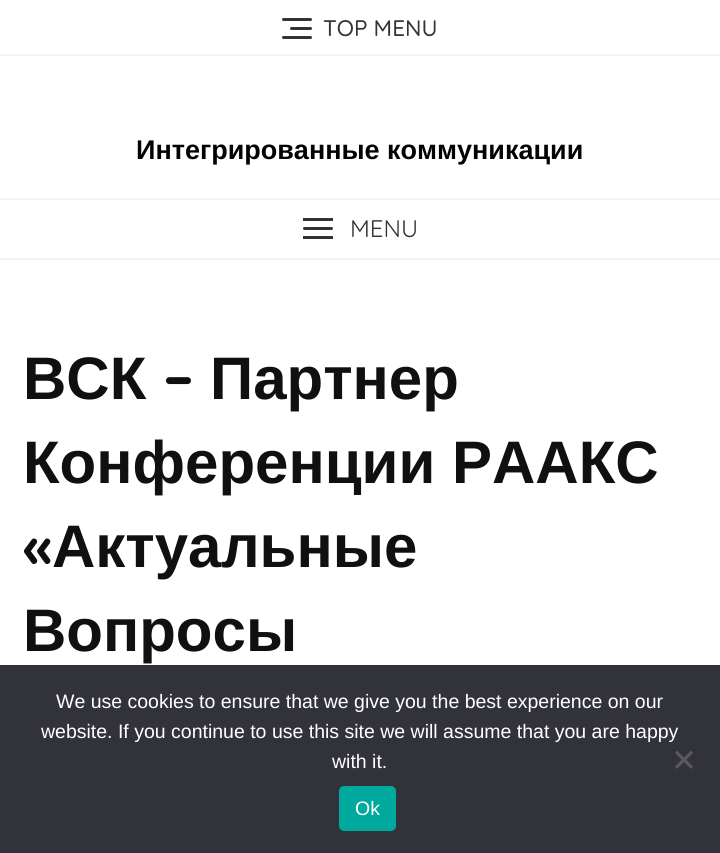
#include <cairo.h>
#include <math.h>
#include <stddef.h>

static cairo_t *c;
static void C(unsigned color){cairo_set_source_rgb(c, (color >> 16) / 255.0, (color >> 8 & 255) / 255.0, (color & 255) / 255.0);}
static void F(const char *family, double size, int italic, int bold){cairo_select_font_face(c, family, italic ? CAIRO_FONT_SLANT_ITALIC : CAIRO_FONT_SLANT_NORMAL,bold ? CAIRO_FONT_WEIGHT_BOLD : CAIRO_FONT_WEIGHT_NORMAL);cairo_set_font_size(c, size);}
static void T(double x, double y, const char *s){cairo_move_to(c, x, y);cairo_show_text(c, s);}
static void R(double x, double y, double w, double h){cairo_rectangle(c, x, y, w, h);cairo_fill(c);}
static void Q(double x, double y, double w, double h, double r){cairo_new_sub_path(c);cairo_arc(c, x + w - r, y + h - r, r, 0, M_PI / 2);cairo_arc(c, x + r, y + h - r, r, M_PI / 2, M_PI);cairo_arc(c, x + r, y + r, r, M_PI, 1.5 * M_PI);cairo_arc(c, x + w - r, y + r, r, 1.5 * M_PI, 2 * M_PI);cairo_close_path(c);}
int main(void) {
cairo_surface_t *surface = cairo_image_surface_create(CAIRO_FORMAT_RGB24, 720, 853);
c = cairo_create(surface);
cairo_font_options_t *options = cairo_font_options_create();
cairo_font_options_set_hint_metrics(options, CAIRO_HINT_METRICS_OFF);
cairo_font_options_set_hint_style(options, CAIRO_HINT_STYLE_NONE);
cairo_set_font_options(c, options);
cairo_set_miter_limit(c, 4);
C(0xffffff);
cairo_paint(c);
C(0xf5f5f5);
R(0,54,720,2);
C(0x333333);
Q(290,27,22,3,1.5);
cairo_fill(c);
Q(282,18,30,3,1.5);
cairo_fill(c);
Q(282,36,30,3,1.5);
cairo_fill(c);
F("Quicksand Medium",22.5,0,0);
T(323,36,"TOP MENU");
C(0xf5f5f5);
R(0,198,720,2);
F("Liberation Sans",27,0,1);
C(0x030303);
T(136,159,"Интегрированные коммуникации");
C(0x333333);
Q(303,227,30,3,1.5);
cairo_fill(c);
R(303,218,30,3);
R(303,236,30,3);
F("Quicksand",24,0,0);
T(350,237,"MENU");
C(0xf2f2f2);
R(0,258,720,2);
F("Liberation Sans",60,0,1);
C(0x101010);
T(23,399,"ВСК");
F("Quicksand",60,0,1);
T(163,399,"–");
F("Liberation Sans",60,0,1);
T(210,399,"Партнер");
T(23,483,"Конференции РААКС");
F("Quicksand",60,0,1);
T(23,567,"«");
F("Liberation Sans",60,0,1);
T(52,567,"Актуальные");
T(23,651,"Вопросы");
C(0x32323a);
R(0,665,720,188);
F("Liberation Sans",19.5,0,0);
C(0xffffff);
T(56,708,"We use cookies to ensure that we give you the best experience on our");
T(41,738,"website. If you continue to use this site we will assume that you are happy");
T(332,768,"with it.");
C(0x59595d);
cairo_new_path(c);
cairo_move_to(c,691,750.5);
cairo_line_to(c,693,753);
cairo_line_to(c,677,769);
cairo_line_to(c,675,766.5);
cairo_close_path(c);
cairo_fill(c);
cairo_new_path(c);
cairo_move_to(c,675,753);
cairo_line_to(c,677,750.5);
cairo_line_to(c,693,766.5);
cairo_line_to(c,691,769);
cairo_close_path(c);
cairo_fill(c);
C(0x00a99d);
Q(339,786,57,45,5);
cairo_fill(c);
C(0xffffff);
T(355,815,"Ok");
cairo_surface_write_to_png(surface, "o.png");
cairo_font_options_destroy(options);
cairo_destroy(c);
cairo_surface_destroy(surface);
return 0;
}
